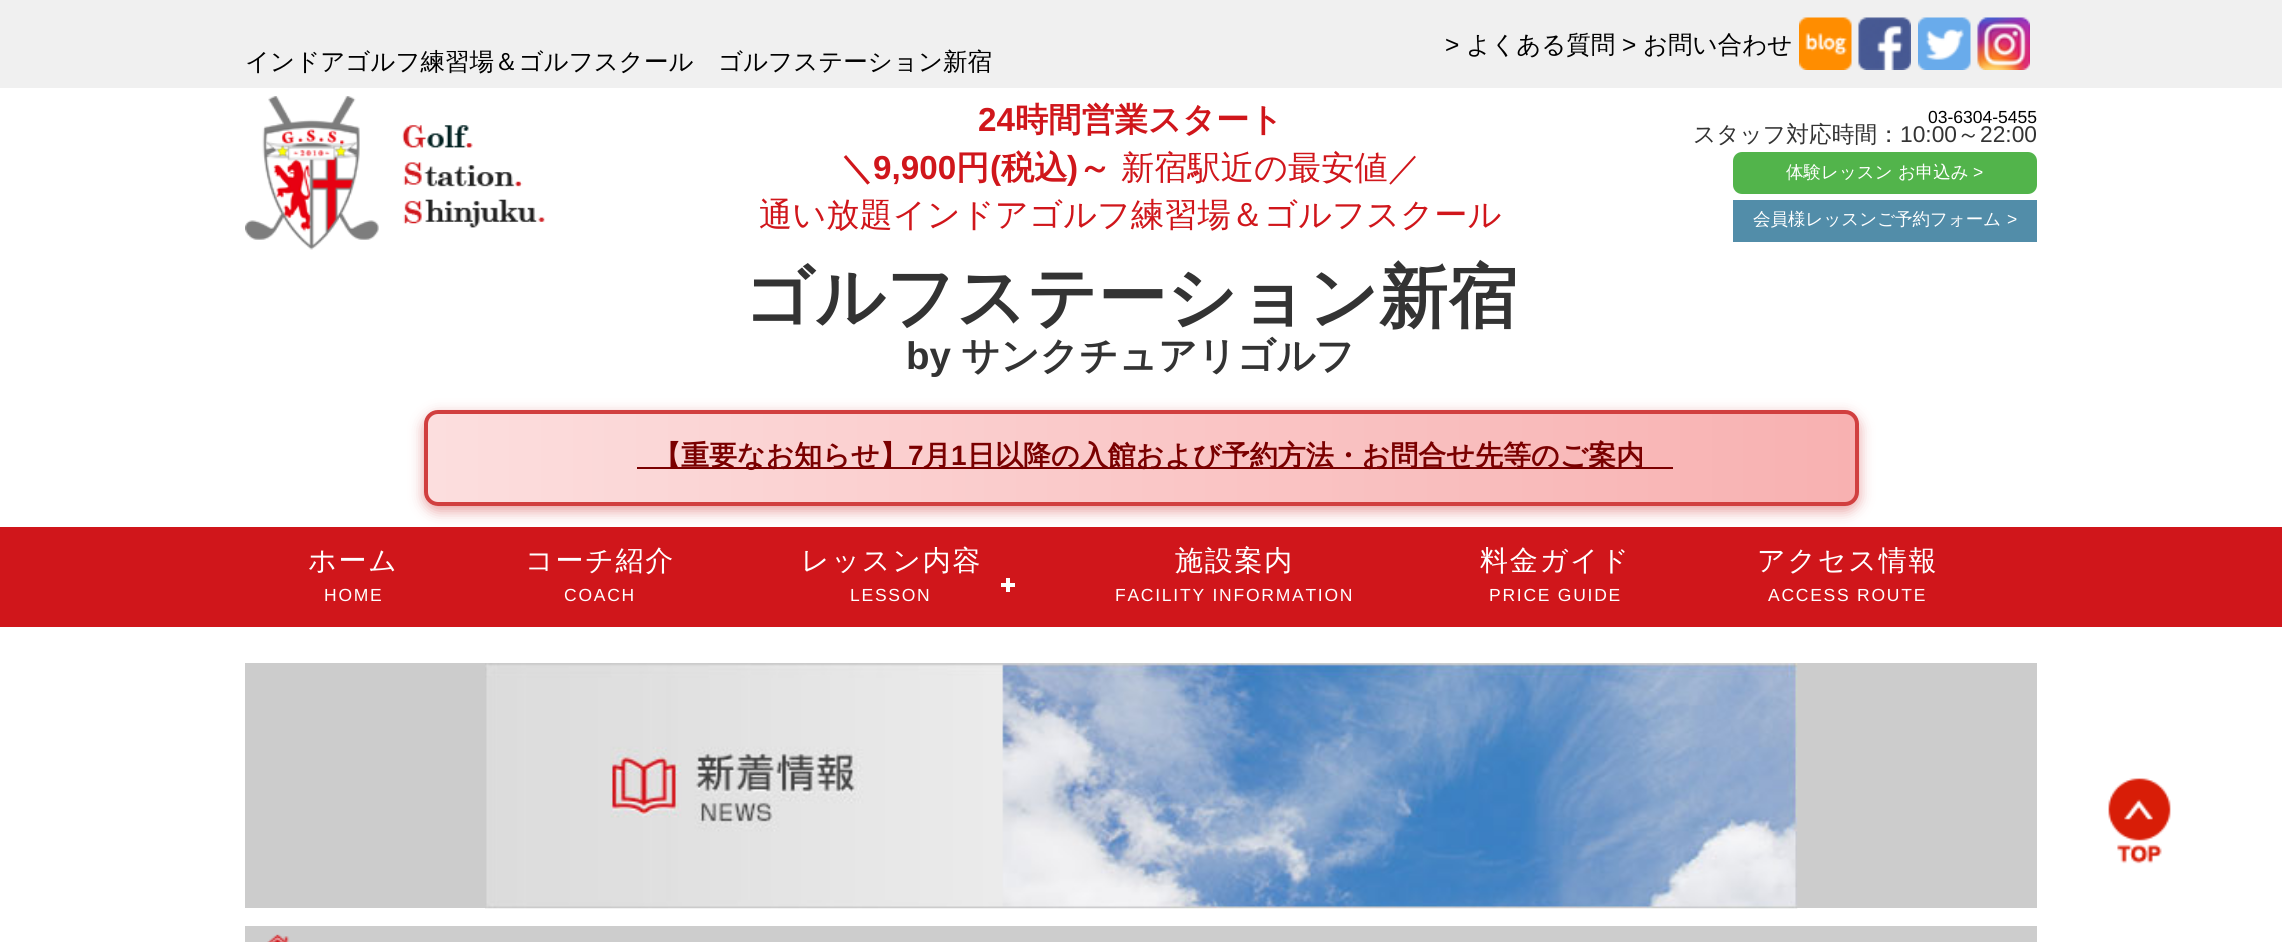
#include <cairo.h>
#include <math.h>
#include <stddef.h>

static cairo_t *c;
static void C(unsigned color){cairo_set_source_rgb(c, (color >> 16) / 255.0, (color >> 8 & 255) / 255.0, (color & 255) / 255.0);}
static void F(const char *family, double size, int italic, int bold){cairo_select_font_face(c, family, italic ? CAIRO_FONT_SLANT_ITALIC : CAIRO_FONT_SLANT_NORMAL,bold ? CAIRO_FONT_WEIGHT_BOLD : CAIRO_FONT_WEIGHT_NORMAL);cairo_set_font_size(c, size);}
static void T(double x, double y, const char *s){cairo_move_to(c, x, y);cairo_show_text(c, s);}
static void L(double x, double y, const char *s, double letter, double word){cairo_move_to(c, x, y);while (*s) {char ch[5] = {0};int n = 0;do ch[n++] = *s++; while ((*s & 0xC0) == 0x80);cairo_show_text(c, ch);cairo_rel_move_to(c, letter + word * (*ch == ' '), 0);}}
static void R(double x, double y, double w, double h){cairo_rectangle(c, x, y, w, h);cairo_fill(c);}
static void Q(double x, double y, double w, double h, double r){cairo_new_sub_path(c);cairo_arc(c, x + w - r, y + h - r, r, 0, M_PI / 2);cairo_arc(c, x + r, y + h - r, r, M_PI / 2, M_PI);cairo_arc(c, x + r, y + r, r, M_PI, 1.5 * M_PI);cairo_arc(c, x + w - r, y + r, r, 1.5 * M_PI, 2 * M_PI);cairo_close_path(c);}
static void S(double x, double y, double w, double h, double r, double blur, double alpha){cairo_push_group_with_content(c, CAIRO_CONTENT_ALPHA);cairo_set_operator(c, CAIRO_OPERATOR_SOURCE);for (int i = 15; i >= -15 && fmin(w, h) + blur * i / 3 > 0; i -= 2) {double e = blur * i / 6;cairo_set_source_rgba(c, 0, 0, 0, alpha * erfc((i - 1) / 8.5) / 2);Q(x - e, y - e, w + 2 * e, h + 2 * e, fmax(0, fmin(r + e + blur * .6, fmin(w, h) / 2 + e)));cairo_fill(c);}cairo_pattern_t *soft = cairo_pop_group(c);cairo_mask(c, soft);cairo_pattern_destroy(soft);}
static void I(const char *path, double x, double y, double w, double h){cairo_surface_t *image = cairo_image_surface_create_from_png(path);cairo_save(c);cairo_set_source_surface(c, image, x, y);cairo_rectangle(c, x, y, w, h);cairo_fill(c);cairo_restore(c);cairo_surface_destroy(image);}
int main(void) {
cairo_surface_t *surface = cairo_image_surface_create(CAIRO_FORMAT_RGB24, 2282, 942);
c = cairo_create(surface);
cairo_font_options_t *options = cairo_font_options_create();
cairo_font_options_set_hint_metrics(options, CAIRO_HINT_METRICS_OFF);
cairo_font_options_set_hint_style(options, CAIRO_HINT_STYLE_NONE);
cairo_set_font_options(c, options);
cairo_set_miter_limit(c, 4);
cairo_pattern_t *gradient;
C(0xffffff);
cairo_paint(c);
C(0xf0f0f0);
R(0,0,2282,88);
F("Liberation Sans",24.5,0,0);
C(0x000000);
T(1445,53,">");
F("WenQuanYi Zen Hei Medium",24.5,0,0);
T(1466,53,"よくある質問");
F("Liberation Sans",24.5,0,0);
T(1622,53,">");
F("WenQuanYi Zen Hei Medium",24.5,0,0);
T(1643,53,"お問い合わせ");
I("1.png",1799,17,53,53);
I("2.png",1858,17,53,53);
I("3.png",1918,17,53,53);
I("4.png",1977,17,53,53);
T(245,70,"インドアゴルフ練習場＆ゴルフスクール　ゴルフステーション新宿");
I("5.png",245,96,300,154);
F("Liberation Sans",33.25,0,1);
C(0xd0161b);
T(978,131,"24");
F("WenQuanYi Zen Hei",33.25,0,1);
T(1015,131,"時間営業スタート");
T(840,179,"＼");
F("Liberation Sans",33.25,0,1);
T(873,179,"9,900");
F("WenQuanYi Zen Hei",33.25,0,1);
T(956,179,"円");
F("Liberation Sans",33.25,0,1);
T(990,179,"(");
F("WenQuanYi Zen Hei",33.25,0,1);
T(1001,179,"税込");
F("Liberation Sans",33.25,0,1);
T(1067,179,")");
F("WenQuanYi Zen Hei",33.25,0,1);
T(1078,179,"～");
F("WenQuanYi Zen Hei Medium",33.25,0,0);
T(1121,179,"新宿駅近の最安値／");
T(759,226,"通い放題インドアゴルフ練習場＆ゴルフスクール");
F("WenQuanYi Zen Hei",69.1,0,1);
C(0x333333);
T(744,321,"ゴルフステーション新宿");
F("Liberation Sans",38.5,0,1);
T(906,369,"by");
F("WenQuanYi Zen Hei",38.5,0,1);
T(961,369,"サンクチュアリゴルフ");
F("Liberation Sans",17.5,0,0);
C(0x000000);
T(1928,123,"03-6304-5455");
F("WenQuanYi Zen Hei Medium",22.75,0,0);
C(0x333333);
T(1693,142,"スタッフ対応時間：");
F("Liberation Sans",22.75,0,0);
T(1900,142,"10:00");
F("WenQuanYi Zen Hei Medium",22.75,0,0);
T(1957,142,"～");
F("Liberation Sans",22.75,0,0);
T(1980,142,"22:00");
C(0x52b44b);
Q(1733,152,304,42,9);
cairo_fill(c);
F("WenQuanYi Zen Hei Medium",17.5,0,0);
C(0xffffff);
T(1786,178,"体験レッスン お申込み");
F("Liberation Sans",17.5,0,0);
T(1973,178,">");
C(0x528da9);
R(1733,200,304,42);
F("WenQuanYi Zen Hei Medium",17.5,0,0);
C(0xffffff);
T(1753,225,"会員様レッスンご予約フォーム");
F("Liberation Sans",17.5,0,0);
T(2007,225,">");
C(0xd13f3f);
S(424,415,1435,96,14,7,.5);
cairo_save(c);
Q(424,410,1435,96,14);
cairo_clip(c);
gradient = cairo_pattern_create_linear(427,458,1855,458);
cairo_pattern_add_color_stop_rgba(gradient,0,0.988,0.871,0.871,1);
cairo_pattern_add_color_stop_rgba(gradient,1,0.973,0.694,0.694,1);
cairo_set_source(c,gradient);
cairo_pattern_destroy(gradient);
R(427,410,1428,96);
cairo_restore(c);
Q(426,412,1431,92,12);
C(0xd13f3f);
cairo_set_line_width(c,4);
cairo_stroke(c);
C(0x7a0000);
R(637,467,1036,2);
F("WenQuanYi Zen Hei",28,0,1);
T(653,465,"【重要なお知らせ】");
F("Liberation Sans",28,0,1);
T(908,465,"7");
F("WenQuanYi Zen Hei",28,0,1);
T(923,465,"月");
F("Liberation Sans",28,0,1);
T(951,465,"1");
F("WenQuanYi Zen Hei",28,0,1);
T(967,465,"日以降の入館および予約方法・お問合せ先等のご案内");
C(0xd0161b);
R(0,527,2282,100);
F("WenQuanYi Zen Hei Medium",28,0,0);
C(0xffffff);
L(308,570,"ホーム",1.75,0);
F("Liberation Sans",17.5,0,0);
L(324,601,"HOME",1.75,0);
F("WenQuanYi Zen Hei Medium",28,0,0);
L(525,570,"コーチ紹介",1.75,0);
F("Liberation Sans",17.5,0,0);
L(564,601,"COACH",1.75,0);
F("WenQuanYi Zen Hei Medium",28,0,0);
L(801,570,"レッスン内容",1.75,0);
R(1006,578,4,14);
R(1001,583,14,4);
F("Liberation Sans",17.5,0,0);
L(850,601,"LESSON",1.75,0);
F("WenQuanYi Zen Hei Medium",28,0,0);
L(1175,570,"施設案内",1.75,0);
F("Liberation Sans",17.5,0,0);
L(1115,601,"FACILITY INFORMATION",1.75,0);
F("WenQuanYi Zen Hei Medium",28,0,0);
L(1480,570,"料金ガイド",1.75,0);
F("Liberation Sans",17.5,0,0);
L(1489,601,"PRICE GUIDE",1.75,0);
F("WenQuanYi Zen Hei Medium",28,0,0);
L(1757,570,"アクセス情報",1.75,0);
F("Liberation Sans",17.5,0,0);
L(1768,601,"ACCESS ROUTE",1.75,0);
C(0xcccccc);
R(245,663,1792,245);
I("6.png",485,663,1313,246);
C(0xcdcdcd);
R(245,926,1792,16);
I("7.png",267,934,23,8);
I("8.png",2108,778,63,86);
cairo_surface_write_to_png(surface, "o.png");
cairo_font_options_destroy(options);
cairo_destroy(c);
cairo_surface_destroy(surface);
return 0;
}
